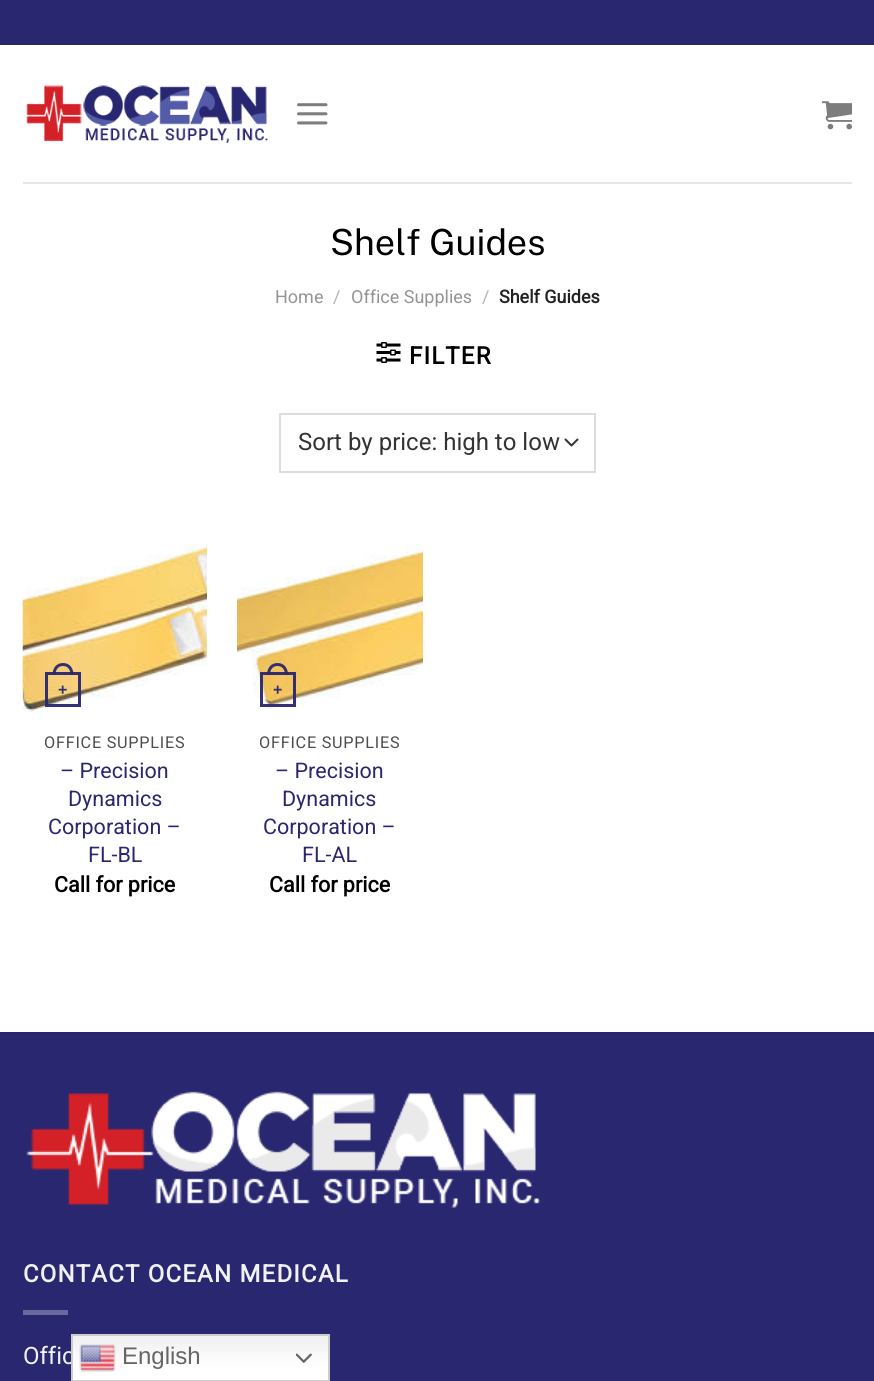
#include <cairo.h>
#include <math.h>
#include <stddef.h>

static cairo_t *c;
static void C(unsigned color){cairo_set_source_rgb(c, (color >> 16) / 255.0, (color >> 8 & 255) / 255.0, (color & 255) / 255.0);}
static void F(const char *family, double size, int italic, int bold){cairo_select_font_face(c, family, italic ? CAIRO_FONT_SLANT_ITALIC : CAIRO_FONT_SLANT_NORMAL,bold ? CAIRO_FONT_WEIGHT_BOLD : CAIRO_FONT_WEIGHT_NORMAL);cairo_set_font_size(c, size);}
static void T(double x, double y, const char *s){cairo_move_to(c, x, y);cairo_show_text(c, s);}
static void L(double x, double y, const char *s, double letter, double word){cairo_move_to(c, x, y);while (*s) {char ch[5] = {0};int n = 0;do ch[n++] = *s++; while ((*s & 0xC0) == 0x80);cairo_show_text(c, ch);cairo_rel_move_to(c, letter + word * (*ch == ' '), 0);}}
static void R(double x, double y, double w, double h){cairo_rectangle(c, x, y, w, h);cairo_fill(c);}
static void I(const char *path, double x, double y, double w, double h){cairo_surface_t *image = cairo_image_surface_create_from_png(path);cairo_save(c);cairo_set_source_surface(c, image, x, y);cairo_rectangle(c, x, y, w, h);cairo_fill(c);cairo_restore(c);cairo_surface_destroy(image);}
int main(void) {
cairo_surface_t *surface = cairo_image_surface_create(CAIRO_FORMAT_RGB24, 874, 1381);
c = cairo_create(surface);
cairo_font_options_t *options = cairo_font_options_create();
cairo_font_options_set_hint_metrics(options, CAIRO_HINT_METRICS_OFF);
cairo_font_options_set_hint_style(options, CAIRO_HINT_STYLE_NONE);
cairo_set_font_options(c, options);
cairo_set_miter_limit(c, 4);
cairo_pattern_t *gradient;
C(0xffffff);
cairo_paint(c);
C(0x2a2771);
R(0,0,874,45);
I("1.png",26,85,242,58);
I("2.png",297,103,31,22);
I("3.png",822,101,30,29);
C(0xe6e6e6);
R(23,182,829,2);
F("Public Sans Thin",36,0,0);
C(0x000000);
T(330,255,"Shelf Guides");
F("Roboto",18,0,0);
C(0x949494);
T(275,303,"Home");
C(0xb2b2b2);
T(333,303,"/");
C(0x949494);
T(351,303,"Office Supplies");
C(0xb2b2b2);
T(482,303,"/");
F("Roboto",18,0,1);
C(0x222222);
T(499,303,"Shelf Guides");
I("4.png",376,342,25,21);
F("Roboto",24,0,1);
C(0x000000);
L(409,364,"FILTER",1.2,0);
cairo_new_path(c);
cairo_move_to(c,565.5,439.5);
cairo_line_to(c,571.5,445.5);
cairo_line_to(c,577.5,439.5);
C(0x333333);
cairo_set_line_cap(c,CAIRO_LINE_CAP_ROUND);
cairo_set_line_join(c,CAIRO_LINE_JOIN_ROUND);
cairo_stroke(c);
cairo_rectangle(c,280,414,315,58);
C(0xdddddd);
cairo_set_line_cap(c,CAIRO_LINE_CAP_BUTT);
cairo_set_line_join(c,CAIRO_LINE_JOIN_MITER);
cairo_stroke(c);
F("Roboto",24,0,0);
C(0x333333);
T(298,450,"Sort by price: high to low");
I("5.png",22,543,185,171);
cairo_rectangle(c,46.5,673.5,33,32);
cairo_set_source_rgba(c,0.165,0.153,0.443,0.95);
cairo_set_line_width(c,3);
cairo_stroke(c);
cairo_set_fill_rule(c,CAIRO_FILL_RULE_EVEN_ODD);
cairo_new_path(c);
cairo_move_to(c,63,663);
cairo_curve_to(c,70,663,73.5,668.5,73.5,675);
cairo_line_to(c,52.5,675);
cairo_curve_to(c,52.5,668.5,56,663,63,663);
cairo_close_path(c);
cairo_move_to(c,63,666);
cairo_curve_to(c,68.5,666,70.5,670.5,70.5,675);
cairo_line_to(c,55.5,675);
cairo_curve_to(c,55.5,670.5,57.5,666,63,666);
cairo_close_path(c);
cairo_fill(c);
F("Liberation Sans",16,0,1);
C(0x342f71);
T(58,695,"+");
F("Roboto",16.25,0,0);
C(0x4d4d4d);
L(44,748,"OFFICE SUPPLIES",.75,0);
F("Roboto",21.5,0,0);
C(0x2a2771);
T(60,778,"– Precision");
T(68,806,"Dynamics");
T(48,834,"Corporation –");
T(88,862,"FL-BL");
F("Roboto",21.5,0,1);
C(0x000000);
T(54,892,"Call for price");
I("6.png",237,543,186,166);
cairo_rectangle(c,261.5,673.5,33,32);
cairo_set_source_rgba(c,0.165,0.153,0.443,0.95);
cairo_stroke(c);
cairo_new_path(c);
cairo_move_to(c,277.5,663);
cairo_curve_to(c,284.5,663,288,668.5,288,675);
cairo_line_to(c,267,675);
cairo_curve_to(c,267,668.5,270.5,663,277.5,663);
cairo_close_path(c);
cairo_move_to(c,277.5,666);
cairo_curve_to(c,283,666,285,670.5,285,675);
cairo_line_to(c,270,675);
cairo_curve_to(c,270,670.5,272,666,277.5,666);
cairo_close_path(c);
cairo_fill(c);
F("Liberation Sans",16,0,1);
C(0x342f71);
T(273,695,"+");
F("Roboto",16.25,0,0);
C(0x4d4d4d);
L(259,748,"OFFICE SUPPLIES",.75,0);
F("Roboto",21.5,0,0);
C(0x2a2771);
T(275,778,"– Precision");
T(282,806,"Dynamics");
T(263,834,"Corporation –");
T(302,862,"FL-AL");
F("Roboto",21.5,0,1);
C(0x000000);
T(269,892,"Call for price");
C(0x2a2771);
R(0,1034,874,347);
C(0x28256b);
R(0,1032,874,2);
I("7.png",26,1091,515,117);
F("Roboto",24,0,1);
C(0xf1f1f1);
L(23,1282,"CONTACT OCEAN MEDICAL",1.2,0);
C(0x6a689c);
R(23,1310,45,5);
F("Roboto",24,0,0);
C(0xf1f1f1);
T(23,1364,"Offic");
gradient = cairo_pattern_create_linear(200,1334,200,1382);
cairo_pattern_add_color_stop_rgba(gradient,0,0.937,0.937,0.937,1);
cairo_pattern_add_color_stop_rgba(gradient,.7,1,1,1,1);
cairo_set_source(c,gradient);
cairo_pattern_destroy(gradient);
R(73,1336,255,44);
cairo_rectangle(c,72,1335,257,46);
C(0xcccccc);
cairo_set_line_width(c,2);
cairo_stroke(c);
I("8.png",79,1344,37,28);
F("Liberation Sans",24,0,0);
C(0x666666);
T(122,1364,"English");
I("9.png",296,1353,16,10);
cairo_surface_write_to_png(surface, "o.png");
cairo_font_options_destroy(options);
cairo_destroy(c);
cairo_surface_destroy(surface);
return 0;
}
